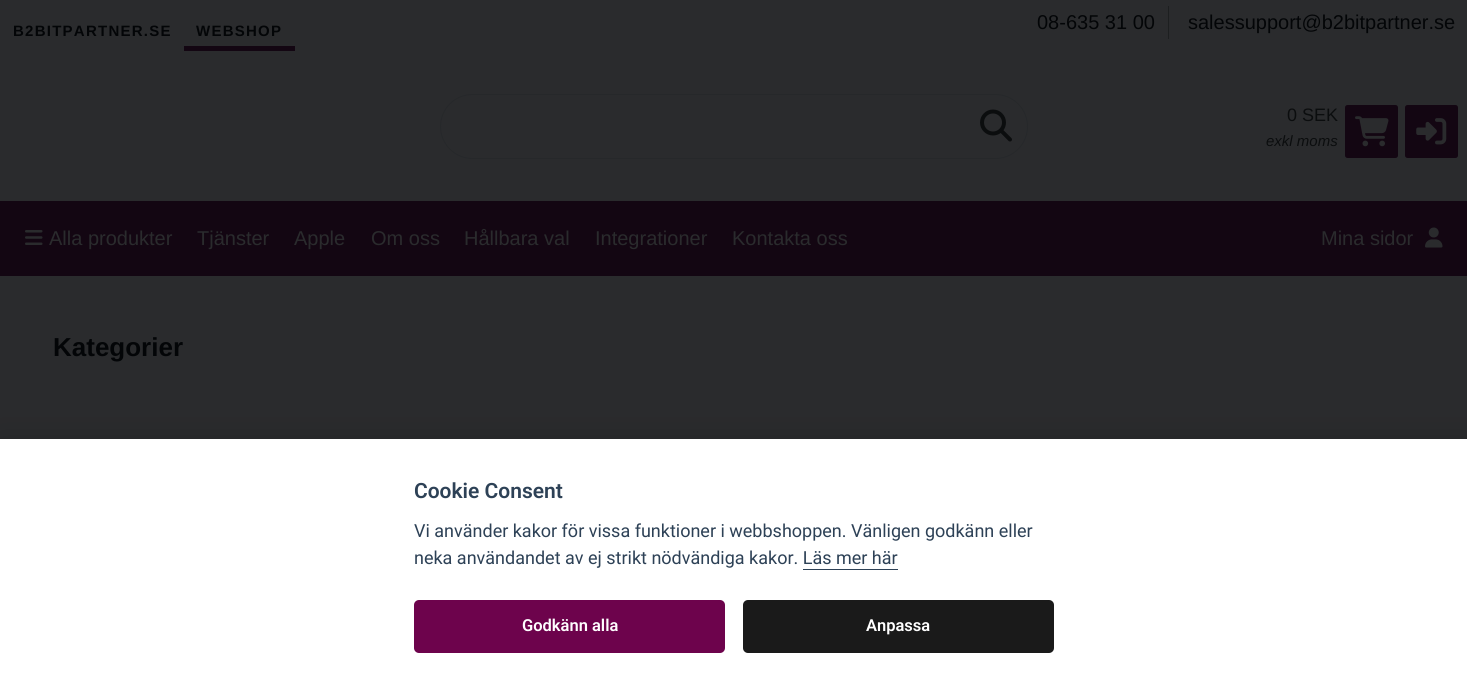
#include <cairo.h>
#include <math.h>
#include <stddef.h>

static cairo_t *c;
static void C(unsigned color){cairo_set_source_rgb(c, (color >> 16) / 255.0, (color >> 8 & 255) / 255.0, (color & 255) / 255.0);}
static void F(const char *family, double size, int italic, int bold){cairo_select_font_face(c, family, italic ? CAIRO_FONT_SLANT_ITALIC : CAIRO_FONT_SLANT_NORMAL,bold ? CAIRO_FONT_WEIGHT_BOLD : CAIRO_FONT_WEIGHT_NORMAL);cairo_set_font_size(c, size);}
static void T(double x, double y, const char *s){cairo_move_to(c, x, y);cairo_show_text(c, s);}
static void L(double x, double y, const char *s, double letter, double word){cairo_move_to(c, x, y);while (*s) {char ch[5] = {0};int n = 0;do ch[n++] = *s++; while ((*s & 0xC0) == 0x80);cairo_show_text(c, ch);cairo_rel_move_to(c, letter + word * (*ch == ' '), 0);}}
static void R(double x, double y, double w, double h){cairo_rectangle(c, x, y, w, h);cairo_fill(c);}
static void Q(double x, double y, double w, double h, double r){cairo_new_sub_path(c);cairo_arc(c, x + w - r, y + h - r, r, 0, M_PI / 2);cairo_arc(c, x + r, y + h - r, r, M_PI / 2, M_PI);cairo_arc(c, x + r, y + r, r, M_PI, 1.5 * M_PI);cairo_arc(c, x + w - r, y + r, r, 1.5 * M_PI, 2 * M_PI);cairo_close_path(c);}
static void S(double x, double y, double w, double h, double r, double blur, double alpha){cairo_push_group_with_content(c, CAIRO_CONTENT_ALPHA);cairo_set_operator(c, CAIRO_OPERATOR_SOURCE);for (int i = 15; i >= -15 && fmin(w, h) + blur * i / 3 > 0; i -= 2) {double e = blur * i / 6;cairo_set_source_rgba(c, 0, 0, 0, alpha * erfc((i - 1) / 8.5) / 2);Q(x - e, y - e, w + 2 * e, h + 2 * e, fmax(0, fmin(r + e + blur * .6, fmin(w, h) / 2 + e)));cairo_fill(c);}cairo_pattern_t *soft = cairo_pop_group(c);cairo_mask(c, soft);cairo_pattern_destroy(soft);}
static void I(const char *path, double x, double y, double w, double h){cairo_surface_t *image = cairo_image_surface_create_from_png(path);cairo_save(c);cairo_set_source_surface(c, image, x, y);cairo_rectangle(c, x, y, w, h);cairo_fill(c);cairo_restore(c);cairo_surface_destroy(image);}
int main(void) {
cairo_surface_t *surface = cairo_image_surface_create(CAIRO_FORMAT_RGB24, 1467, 692);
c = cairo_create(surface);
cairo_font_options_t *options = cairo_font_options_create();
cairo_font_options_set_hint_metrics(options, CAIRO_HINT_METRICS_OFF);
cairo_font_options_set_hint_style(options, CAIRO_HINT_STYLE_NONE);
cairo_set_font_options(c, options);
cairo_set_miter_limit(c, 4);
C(0x2a2b2d);
cairo_paint(c);
F("Liberation Sans",15,0,1);
C(0x030507);
L(13,36,"B2BITPARTNER.SE",1.25,0);
C(0x130612);
R(184,46,111,5);
C(0x030507);
L(196,36,"WEBSHOP",1.25,0);
C(0x1d1f20);
R(1168,6,1,33);
F("Liberation Sans",20,0,0);
C(0x030507);
T(1037,29,"08-635 31 00");
T(1188,29,"salessupport@b2bitpartner.se");
Q(440.5,94.5,587,64,32);
cairo_set_source_rgba(c,0.149,0.157,0.165,0.91);
cairo_set_line_width(c,1);
cairo_stroke(c);
I("1.png",980,109,32,33);
F("Liberation Sans",18,0,0);
C(0x0b0d0e);
T(1287,121,"0 SEK");
F("Liberation Sans",15,1,0);
T(1266,146,"exkl moms");
C(0x130612);
Q(1345,105,53,53,2.5);
cairo_fill(c);
I("2.png",1355,116,34,31);
Q(1405,105,53,53,2.5);
cairo_fill(c);
I("3.png",1416,118,31,27);
R(0,201,1467,75);
I("4.png",25,230,18,15);
F("Liberation Sans",20,0,0);
C(0x2a2b2d);
T(49,245,"Alla produkter");
T(197,245,"Tjänster");
T(294,245,"Apple");
T(371,245,"Om oss");
T(464,245,"Hållbara val");
T(595,245,"Integrationer");
T(732,245,"Kontakta oss");
T(1321,245,"Mina sidor");
I("5.png",1425,227,18,21);
F("Liberation Sans",26,0,1);
C(0x030507);
T(53,356,"Kategorier");
C(0x020203);
S(0,451,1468,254,0,19,.28);
C(0xffffff);
R(0,439,1467,253);
F("Roboto SemiBold",21,0,0);
C(0x2d4156);
T(414,498,"Cookie Consent");
F("Roboto",18,0,0);
T(414,537,"Vi använder kakor för vissa funktioner i webbshoppen. Vänligen godkänn eller");
T(414,564,"neka användandet av ej strikt nödvändiga kakor. Läs mer här");
R(803,569,95,1);
C(0x6d034c);
Q(414,600,311,53,5);
cairo_fill(c);
F("Roboto SemiBold",16.5,0,0);
C(0xffffff);
T(522,631,"Godkänn alla");
C(0x1a1a1a);
Q(743,600,311,53,5);
cairo_fill(c);
C(0xffffff);
T(866,631,"Anpassa");
cairo_surface_write_to_png(surface, "o.png");
cairo_font_options_destroy(options);
cairo_destroy(c);
cairo_surface_destroy(surface);
return 0;
}
